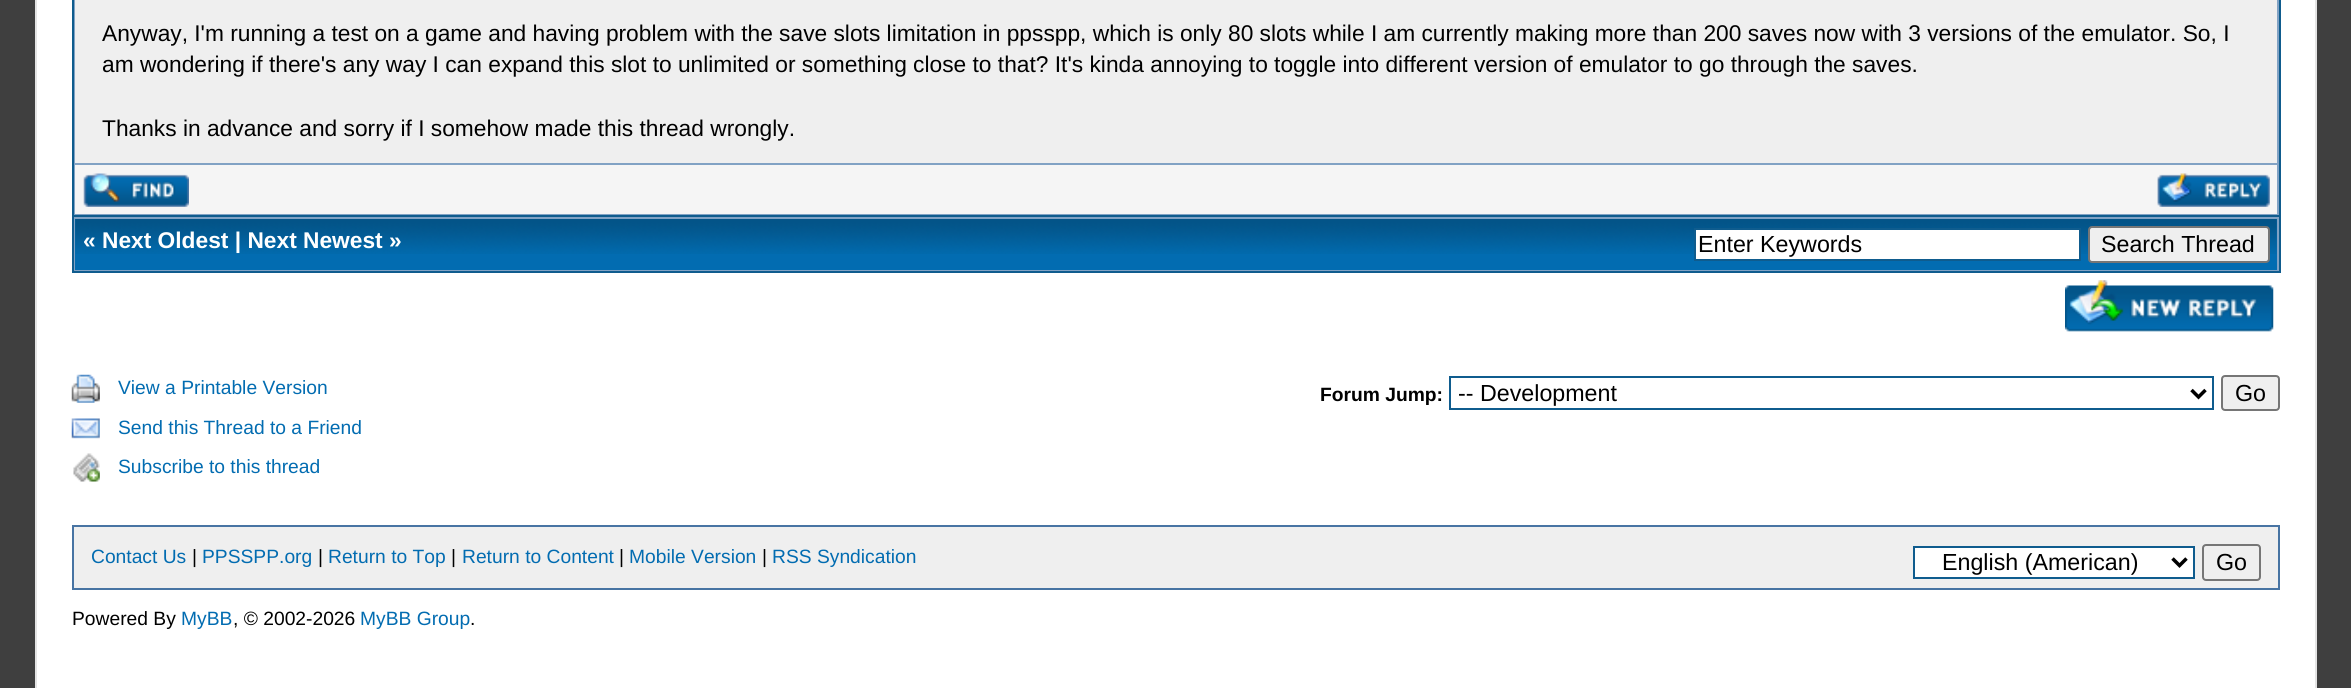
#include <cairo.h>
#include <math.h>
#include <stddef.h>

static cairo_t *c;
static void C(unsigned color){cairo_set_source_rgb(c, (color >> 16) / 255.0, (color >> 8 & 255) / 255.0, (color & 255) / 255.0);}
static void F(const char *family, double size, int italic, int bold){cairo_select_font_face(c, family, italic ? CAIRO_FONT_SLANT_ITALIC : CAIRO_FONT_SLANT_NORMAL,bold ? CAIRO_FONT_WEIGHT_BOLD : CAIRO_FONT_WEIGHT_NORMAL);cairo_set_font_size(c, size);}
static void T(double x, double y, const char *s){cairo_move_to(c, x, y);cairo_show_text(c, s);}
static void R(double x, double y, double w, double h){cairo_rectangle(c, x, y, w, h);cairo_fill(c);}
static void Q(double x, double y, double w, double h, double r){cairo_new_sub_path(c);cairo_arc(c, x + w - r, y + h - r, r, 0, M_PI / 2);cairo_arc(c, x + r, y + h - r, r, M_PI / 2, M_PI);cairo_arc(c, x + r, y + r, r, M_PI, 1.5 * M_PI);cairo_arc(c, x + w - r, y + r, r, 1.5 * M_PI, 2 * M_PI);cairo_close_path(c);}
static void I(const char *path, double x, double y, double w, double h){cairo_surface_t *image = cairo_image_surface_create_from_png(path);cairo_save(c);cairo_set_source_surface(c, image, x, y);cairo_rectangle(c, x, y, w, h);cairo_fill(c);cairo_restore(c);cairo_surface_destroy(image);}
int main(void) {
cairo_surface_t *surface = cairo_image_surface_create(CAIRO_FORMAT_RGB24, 2351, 688);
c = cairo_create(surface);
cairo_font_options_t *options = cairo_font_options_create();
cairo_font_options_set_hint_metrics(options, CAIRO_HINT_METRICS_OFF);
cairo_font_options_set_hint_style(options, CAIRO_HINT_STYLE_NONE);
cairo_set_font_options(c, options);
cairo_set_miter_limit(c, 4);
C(0x3f3f3f);
cairo_paint(c);
C(0xffffff);
cairo_rectangle(c,36,-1,2280,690);
cairo_fill_preserve(c);
C(0xe4e4e4);
cairo_stroke(c);
C(0x81a2c4);
R(74,0,2205,215);
C(0x0f5c8e);
R(2279,0,2,273);
R(72,215,2208,2);
R(72,0,2,217);
C(0xefefef);
R(75,0,2202,163);
F("Liberation Sans",22.75,0,0);
C(0x000000);
T(102,41,"Anyway, I'm running a test on a game and having problem with the save slots limitation in ppsspp, which is only 80 slots while I am currently making more than 200 saves now with 3 versions of the emulator. So, I");
T(102,72,"am wondering if there's any way I can expand this slot to unlimited or something close to that? It's kinda annoying to toggle into different version of emulator to go through the saves.");
T(102,136,"Thanks in advance and sorry if I somehow made this thread wrongly.");
C(0xf5f5f5);
R(75,165,2202,49);
I("1.png",83,173,106,34);
I("2.png",2157,173,113,34);
C(0x81a2c4);
R(74,217,2205,54);
C(0x0f5c8e);
R(72,271,2208,2);
R(72,217,2,56);
C(0x026cb1);
R(75,219,2202,51);
I("3.png",75,219,2202,35);
F("Liberation Sans",22.75,0,1);
C(0xffffff);
T(83,248,"« Next Oldest | Next Newest »");
cairo_rectangle(c,1695,229,385,31);
cairo_fill_preserve(c);
C(0x0f5c8e);
cairo_stroke(c);
F("Liberation Sans",23.25,0,0);
C(0x000000);
T(1698,252,"Enter Keywords");
C(0xefefef);
Q(2089,227,180,35,3);
cairo_fill_preserve(c);
C(0x767676);
cairo_stroke(c);
C(0x000000);
T(2101,252,"Search Thread");
I("4.png",2065,280,209,52);
I("5.png",71,374,29,29);
F("Liberation Sans",19.25,0,0);
C(0x026cb1);
T(118,394,"View a Printable Version");
I("6.png",71,418,29,21);
T(118,434,"Send this Thread to a Friend");
I("7.png",73,453,27,29);
T(118,473,"Subscribe to this thread");
F("Liberation Sans",19.25,0,1);
C(0x000000);
T(1320,401,"Forum Jump:");
cairo_rectangle(c,1450,377,763,32);
C(0x0f5c8e);
cairo_stroke(c);
cairo_new_path(c);
cairo_move_to(c,2191.5,390);
cairo_line_to(c,2198.5,397);
cairo_line_to(c,2205.5,390);
C(0x000000);
cairo_set_line_width(c,3.5);
cairo_stroke(c);
F("Liberation Sans",23.25,0,0);
T(1458,401,"-- Development");
C(0xefefef);
Q(2222,376,57,34,3);
cairo_fill_preserve(c);
C(0x767676);
cairo_set_line_width(c,2);
cairo_stroke(c);
C(0x000000);
T(2235,401,"Go");
C(0xefefef);
cairo_rectangle(c,73,526,2206,63);
cairo_fill_preserve(c);
C(0x4874a3);
cairo_stroke(c);
F("Liberation Sans",19.25,0,0);
C(0x026cb1);
T(91,563,"Contact Us");
C(0x000000);
T(192,563,"|");
C(0x026cb1);
T(202,563,"PPSSPP.org");
C(0x000000);
T(318,563,"|");
C(0x026cb1);
T(328,563,"Return to Top");
C(0x000000);
T(451,563,"|");
C(0x026cb1);
T(462,563,"Return to Content");
C(0x000000);
T(619,563,"|");
C(0x026cb1);
T(629,563,"Mobile Version");
C(0x000000);
T(762,563,"|");
C(0x026cb1);
T(772,563,"RSS Syndication");
C(0xffffff);
cairo_rectangle(c,1914,547,280,31);
cairo_fill_preserve(c);
C(0x0f5c8e);
cairo_stroke(c);
cairo_new_path(c);
cairo_move_to(c,2172.5,558.5);
cairo_line_to(c,2179.5,565.5);
cairo_line_to(c,2186.5,558.5);
C(0x000000);
cairo_set_line_width(c,3.5);
cairo_stroke(c);
F("Liberation Sans",23.25,0,0);
T(1942,570,"English (American)");
Q(2203,545,57,35,3);
C(0x767676);
cairo_set_line_width(c,2);
cairo_stroke(c);
C(0x000000);
T(2216,570,"Go");
F("Liberation Sans",19.25,0,0);
T(72,625,"Powered By");
C(0x026cb1);
T(181,625,"MyBB");
C(0x000000);
T(233,625,", © 2002-2026");
C(0x026cb1);
T(360,625,"MyBB Group");
C(0x000000);
T(470,625,".");
cairo_surface_write_to_png(surface, "o.png");
cairo_font_options_destroy(options);
cairo_destroy(c);
cairo_surface_destroy(surface);
return 0;
}
